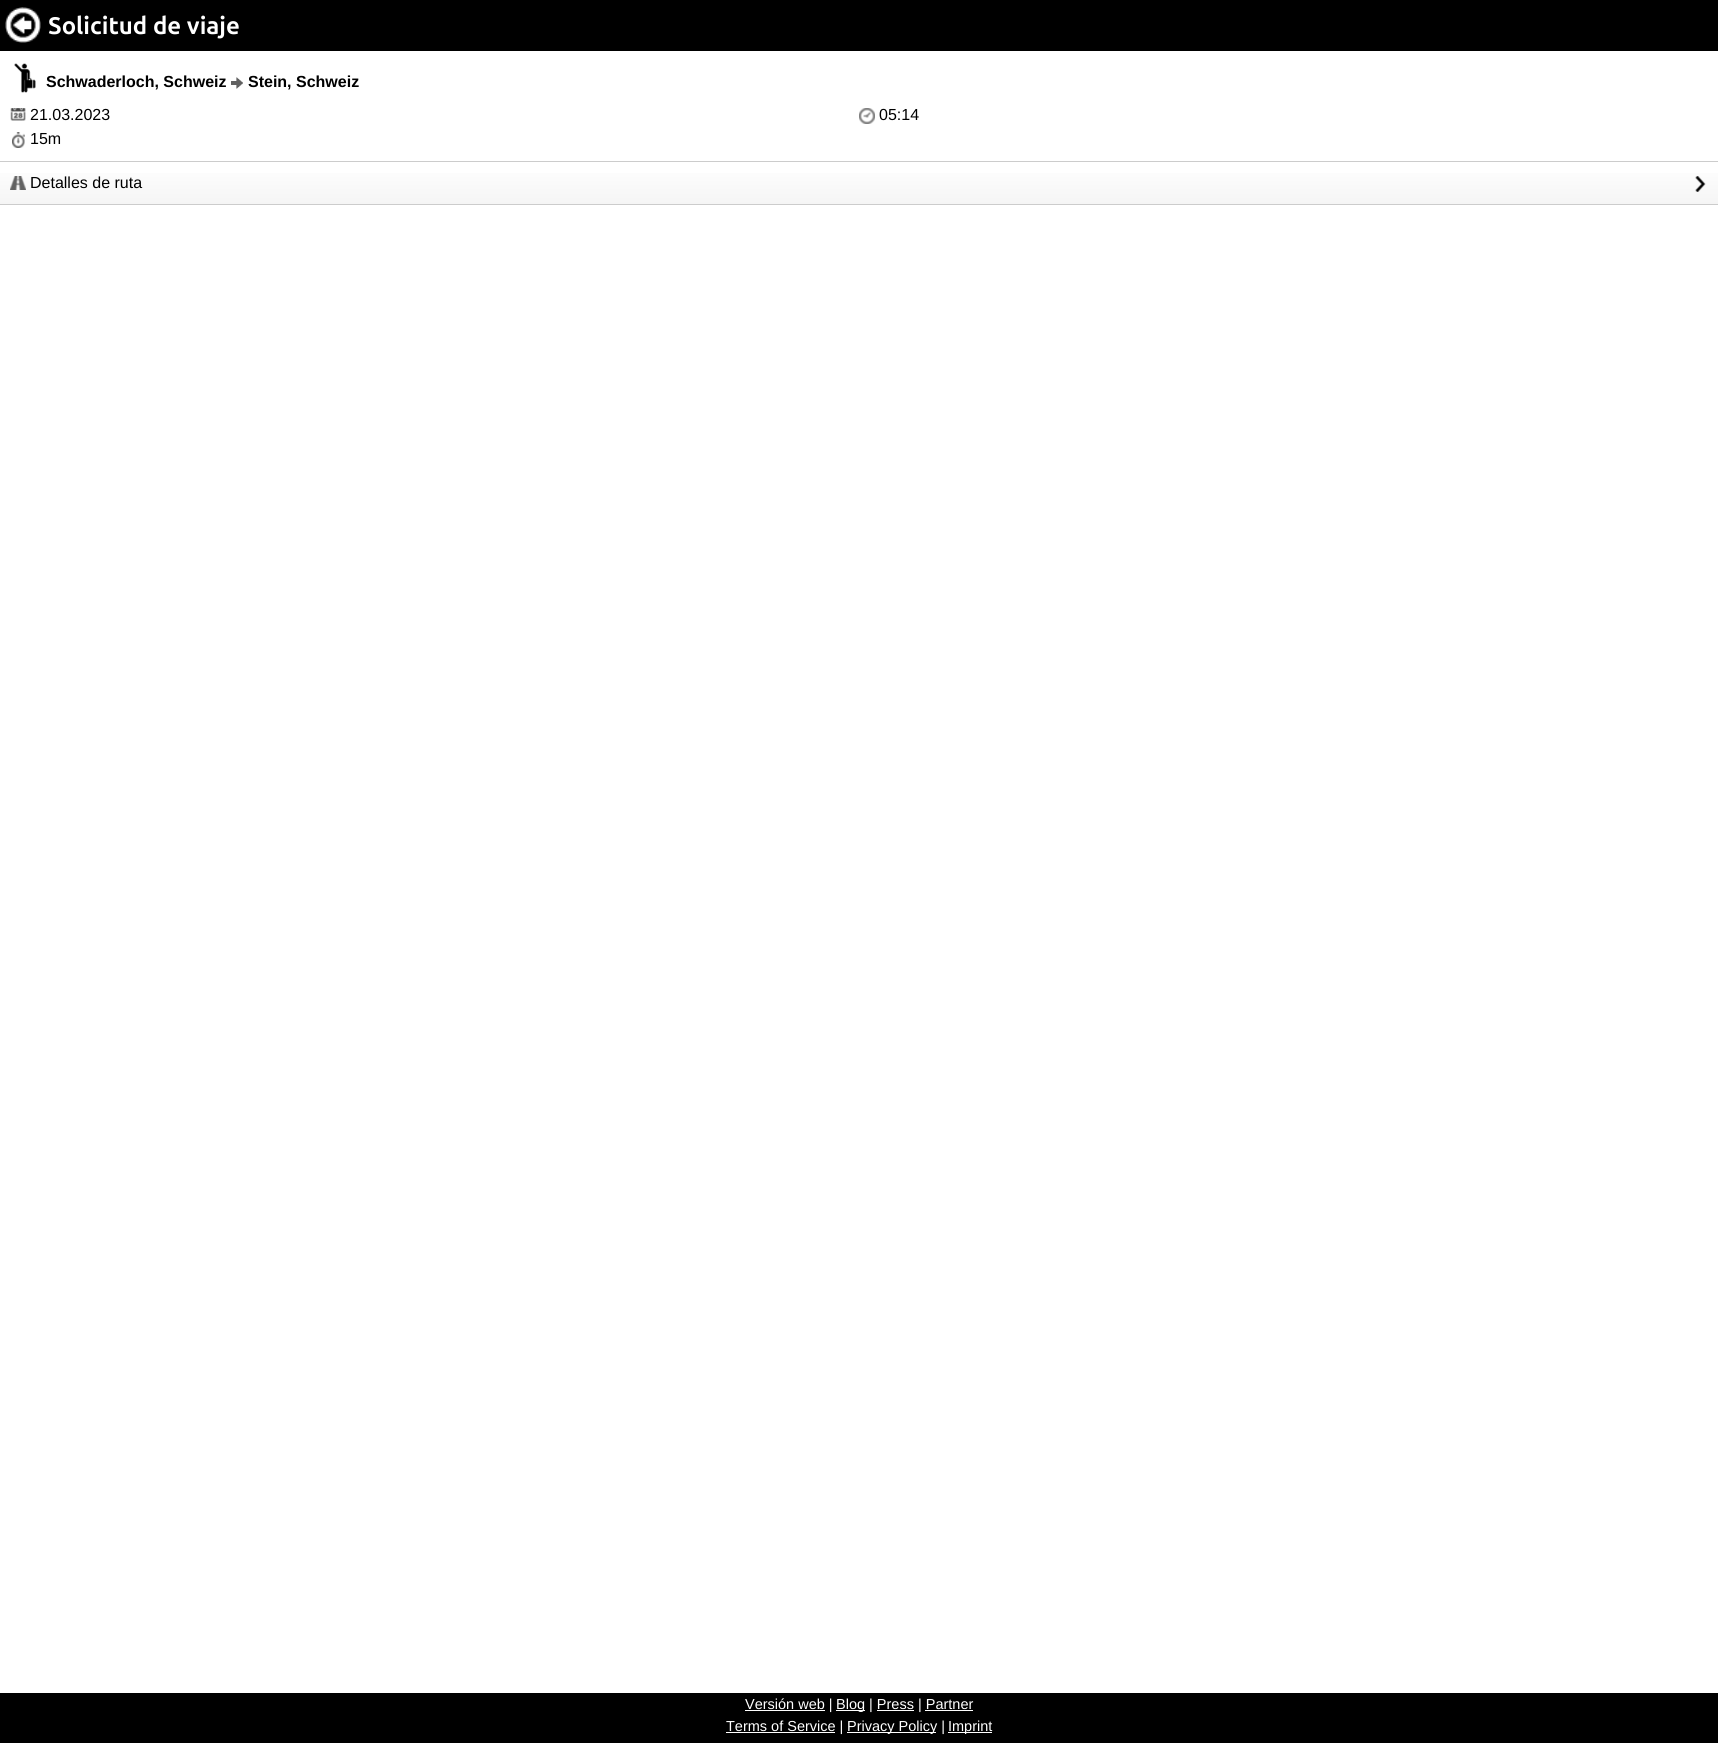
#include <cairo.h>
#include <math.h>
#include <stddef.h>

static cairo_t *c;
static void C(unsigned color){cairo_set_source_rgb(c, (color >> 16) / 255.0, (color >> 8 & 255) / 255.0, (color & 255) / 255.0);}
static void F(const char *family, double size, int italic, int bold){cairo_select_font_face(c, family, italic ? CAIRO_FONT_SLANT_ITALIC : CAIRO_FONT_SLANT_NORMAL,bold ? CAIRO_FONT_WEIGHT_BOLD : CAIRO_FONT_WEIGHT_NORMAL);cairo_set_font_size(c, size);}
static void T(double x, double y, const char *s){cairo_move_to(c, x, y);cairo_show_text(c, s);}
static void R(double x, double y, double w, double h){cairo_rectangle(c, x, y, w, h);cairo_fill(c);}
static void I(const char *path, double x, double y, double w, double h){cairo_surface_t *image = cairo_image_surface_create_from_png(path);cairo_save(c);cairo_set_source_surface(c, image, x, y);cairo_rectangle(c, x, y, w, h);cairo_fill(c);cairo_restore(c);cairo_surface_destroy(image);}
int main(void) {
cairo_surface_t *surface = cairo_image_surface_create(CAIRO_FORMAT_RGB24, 1718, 1743);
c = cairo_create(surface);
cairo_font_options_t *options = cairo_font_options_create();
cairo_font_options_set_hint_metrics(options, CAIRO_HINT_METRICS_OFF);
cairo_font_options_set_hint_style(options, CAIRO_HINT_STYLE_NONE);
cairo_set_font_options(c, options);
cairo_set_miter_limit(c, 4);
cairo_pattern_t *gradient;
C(0xffffff);
cairo_paint(c);
C(0x000000);
R(0,0,1718,51);
I("1.png",5,7,36,36);
F("Ubuntu",24,0,1);
C(0xffffff);
T(48,34,"Solicitud de viaje");
I("2.png",14,63,22,30);
F("Liberation Sans",16,0,1);
C(0x000000);
T(46,87,"Schwaderloch, Schweiz");
I("3.png",231,77,12,12);
T(248,87,"Stein, Schweiz");
I("4.png",10,108,16,13);
F("Liberation Sans",16,0,0);
T(30,120,"21.03.2023");
I("5.png",859,108,16,16);
T(879,120,"05:14");
I("6.png",12,132,13,16);
T(30,144,"15m");
gradient = cairo_pattern_create_linear(859,162,859,204);
cairo_pattern_add_color_stop_rgba(gradient,0,1,1,1,1);
cairo_pattern_add_color_stop_rgba(gradient,1,0.961,0.961,0.961,1);
cairo_set_source(c,gradient);
cairo_pattern_destroy(gradient);
R(0,173,1718,31);
C(0xcccccc);
R(0,161,1718,1);
R(0,204,1718,1);
I("7.png",10,176,16,14);
C(0x000000);
T(30,188,"Detalles de ruta");
I("8.png",1695,176,11,16);
R(0,1693,1718,50);
C(0xffffff);
R(745,1710,80,1);
F("Liberation Sans",14.5,0,0);
T(745,1709,"Versión web |");
R(836,1710,29,1);
T(836,1709,"Blog | Press | Partner");
R(877,1710,37,1);
R(925,1710,48,1);
R(726,1732,109,1);
T(726,1731,"Terms of Service |");
R(847,1732,89,1);
T(847,1731,"Privacy Policy |");
R(948,1732,44,1);
T(948,1731,"Imprint");
cairo_surface_write_to_png(surface, "o.png");
cairo_font_options_destroy(options);
cairo_destroy(c);
cairo_surface_destroy(surface);
return 0;
}
